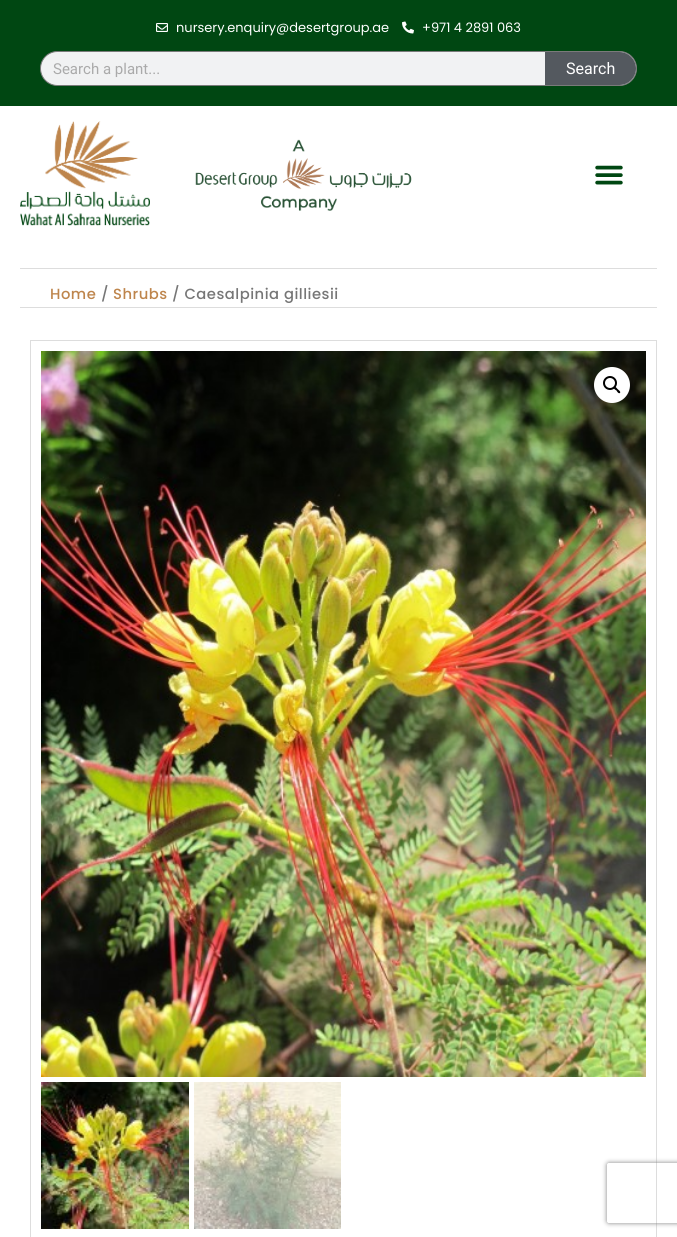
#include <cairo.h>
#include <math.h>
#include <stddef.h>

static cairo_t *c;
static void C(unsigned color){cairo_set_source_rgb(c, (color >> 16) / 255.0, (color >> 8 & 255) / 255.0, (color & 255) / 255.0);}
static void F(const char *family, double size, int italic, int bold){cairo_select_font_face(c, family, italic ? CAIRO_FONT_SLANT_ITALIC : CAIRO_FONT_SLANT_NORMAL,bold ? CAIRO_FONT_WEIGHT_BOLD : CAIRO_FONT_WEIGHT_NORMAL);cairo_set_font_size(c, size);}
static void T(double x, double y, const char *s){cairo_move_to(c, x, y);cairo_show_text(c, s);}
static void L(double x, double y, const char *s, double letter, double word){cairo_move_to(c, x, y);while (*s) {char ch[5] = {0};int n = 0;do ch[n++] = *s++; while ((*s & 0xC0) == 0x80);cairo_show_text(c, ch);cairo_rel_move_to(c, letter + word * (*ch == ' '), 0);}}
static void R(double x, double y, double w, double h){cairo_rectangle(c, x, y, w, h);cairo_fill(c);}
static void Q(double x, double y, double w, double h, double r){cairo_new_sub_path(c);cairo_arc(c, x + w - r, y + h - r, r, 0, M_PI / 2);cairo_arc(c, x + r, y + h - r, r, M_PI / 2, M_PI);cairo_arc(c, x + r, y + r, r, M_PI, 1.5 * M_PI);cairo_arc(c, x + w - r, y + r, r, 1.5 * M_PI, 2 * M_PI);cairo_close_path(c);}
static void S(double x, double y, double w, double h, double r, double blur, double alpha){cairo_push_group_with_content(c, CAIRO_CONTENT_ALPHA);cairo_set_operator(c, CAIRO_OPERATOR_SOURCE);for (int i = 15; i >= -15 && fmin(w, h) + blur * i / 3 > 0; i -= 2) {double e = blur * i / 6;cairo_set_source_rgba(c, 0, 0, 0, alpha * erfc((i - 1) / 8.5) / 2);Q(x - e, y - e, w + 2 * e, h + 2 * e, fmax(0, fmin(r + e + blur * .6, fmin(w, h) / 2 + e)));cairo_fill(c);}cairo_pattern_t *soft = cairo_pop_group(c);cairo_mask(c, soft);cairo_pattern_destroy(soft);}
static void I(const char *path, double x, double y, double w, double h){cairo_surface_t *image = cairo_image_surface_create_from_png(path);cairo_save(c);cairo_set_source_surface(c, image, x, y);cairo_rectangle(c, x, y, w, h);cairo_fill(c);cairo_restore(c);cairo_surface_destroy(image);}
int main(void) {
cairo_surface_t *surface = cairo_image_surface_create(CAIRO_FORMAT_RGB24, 677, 1237);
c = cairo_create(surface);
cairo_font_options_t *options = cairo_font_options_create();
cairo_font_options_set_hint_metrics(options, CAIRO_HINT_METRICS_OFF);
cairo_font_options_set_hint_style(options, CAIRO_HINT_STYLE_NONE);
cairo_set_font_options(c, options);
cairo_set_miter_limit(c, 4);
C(0xffffff);
cairo_paint(c);
C(0x004712);
R(0,0,677,106);
I("1.png",156,23,12,9);
F("Poppins",13,0,0);
C(0xffffff);
T(176,32,"nursery.enquiry@desertgroup.ae");
I("2.png",402,21,12,13);
T(422,32,"+971 4 2891 063");
C(0xf1f2f3);
Q(40.5,51.5,596,34,17);
cairo_fill_preserve(c);
C(0x7a7a7a);
cairo_set_line_width(c,1);
cairo_stroke(c);
F("Roboto",15,0,0);
C(0xaaaaaa);
T(53,74,"Search a plant...");
C(0x54595f);
cairo_new_path(c);
cairo_move_to(c,545,52);
cairo_line_to(c,619.5,52);
cairo_curve_to(c,628.5,52,636,59.5,636,68.5);
cairo_curve_to(c,636,77.5,628.5,85,619.5,85);
cairo_line_to(c,545,85);
cairo_close_path(c);
cairo_fill(c);
F("Roboto",16,0,0);
C(0xffffff);
T(566,74,"Search");
I("3.png",20,121,130,105);
I("4.png",195,139,217,72);
I("5.png",595,165,28,20);
C(0xdddddd);
R(20,268,637,1);
F("Poppins Medium",14.75,0,0);
C(0xbe854c);
L(50,299,"Home",.5,0);
C(0x767676);
L(101,299,"/",.5,0);
C(0xbe854c);
L(113,299,"Shrubs",.5,0);
C(0x767676);
L(172,299,"/ Caesalpinia gilliesii",.5,0);
C(0xdddddd);
R(20,307,637,1);
cairo_rectangle(c,30.5,340.5,626,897);
cairo_stroke(c);
I("6.png",41,351,605,726);
C(0xffffff);
cairo_arc(c,612,385,18,0,2 * M_PI);
cairo_fill(c);
cairo_arc(c,610,383,6,0,2 * M_PI);
C(0x000000);
cairo_set_line_width(c,2);
cairo_stroke(c);
cairo_new_path(c);
cairo_move_to(c,614,387);
cairo_curve_to(c,615.5,386,617,388.5,617.5,389);
cairo_curve_to(c,618.5,390,621,391.5,620,393);
cairo_curve_to(c,618.5,394,617,391.5,616.5,390.5);
cairo_curve_to(c,615.5,390,613,388.5,614,387);
cairo_close_path(c);
cairo_fill(c);
I("7.png",41,1082,148,147);
I("8.png",194,1082,147,147);
cairo_save(c);
cairo_set_fill_rule(c,CAIRO_FILL_RULE_EVEN_ODD);
cairo_new_path(c);
cairo_move_to(c,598,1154);
cairo_line_to(c,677,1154);
cairo_line_to(c,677,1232);
cairo_line_to(c,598,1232);
cairo_close_path(c);
cairo_move_to(c,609,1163);
cairo_line_to(c,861,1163);
cairo_curve_to(c,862,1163,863,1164,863,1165);
cairo_line_to(c,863,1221);
cairo_curve_to(c,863,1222,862,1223,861,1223);
cairo_line_to(c,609,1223);
cairo_curve_to(c,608,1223,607,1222,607,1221);
cairo_line_to(c,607,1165);
cairo_curve_to(c,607,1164,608,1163,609,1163);
cairo_close_path(c);
cairo_clip(c);
C(0x808080);
S(607,1163,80,60,2,2.5,1);
cairo_restore(c);
cairo_surface_write_to_png(surface, "o.png");
cairo_font_options_destroy(options);
cairo_destroy(c);
cairo_surface_destroy(surface);
return 0;
}
